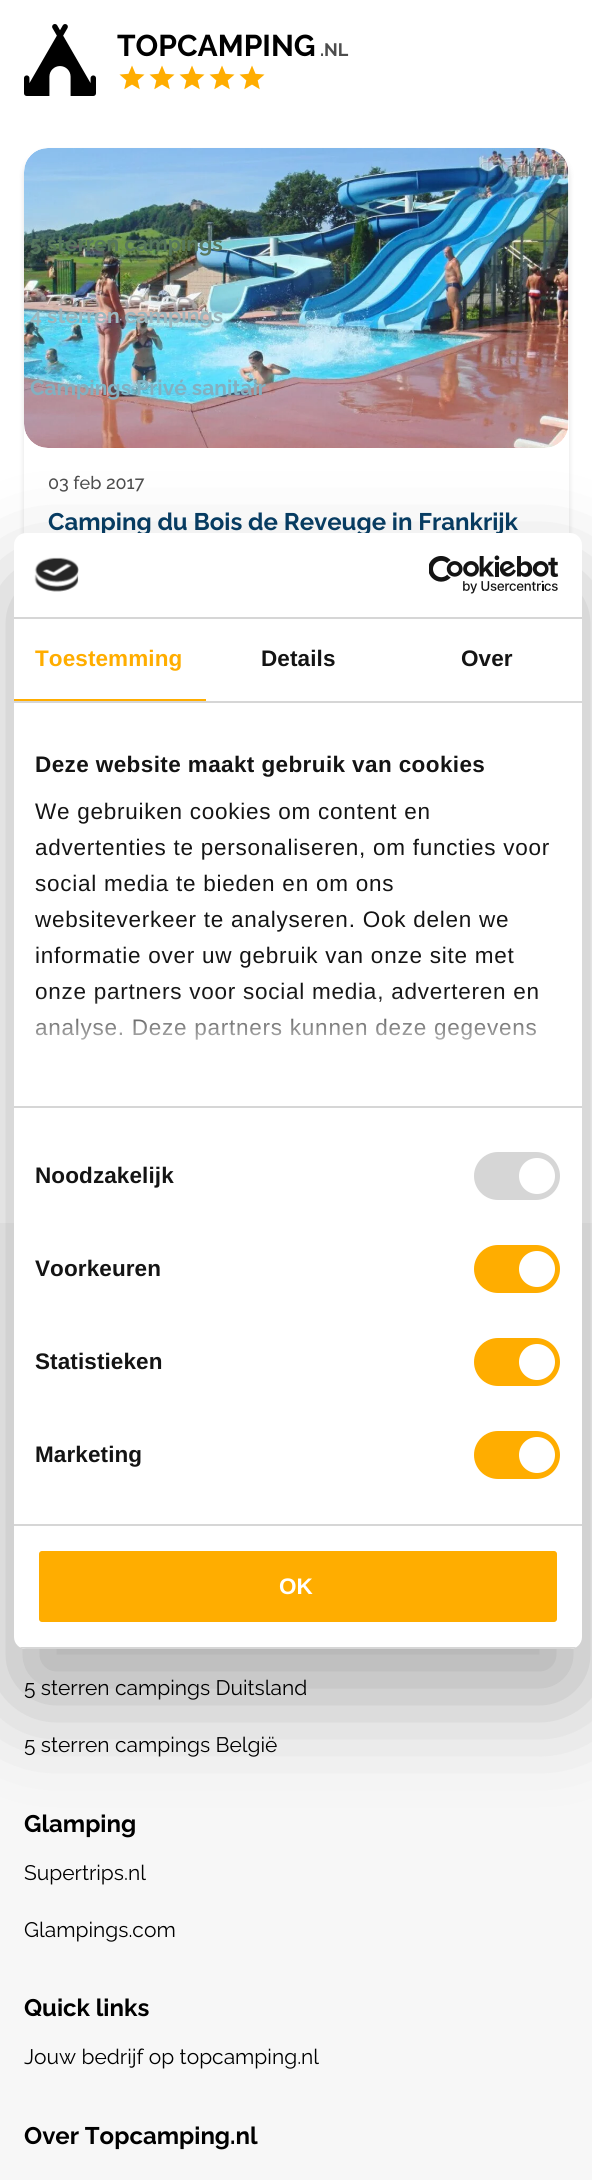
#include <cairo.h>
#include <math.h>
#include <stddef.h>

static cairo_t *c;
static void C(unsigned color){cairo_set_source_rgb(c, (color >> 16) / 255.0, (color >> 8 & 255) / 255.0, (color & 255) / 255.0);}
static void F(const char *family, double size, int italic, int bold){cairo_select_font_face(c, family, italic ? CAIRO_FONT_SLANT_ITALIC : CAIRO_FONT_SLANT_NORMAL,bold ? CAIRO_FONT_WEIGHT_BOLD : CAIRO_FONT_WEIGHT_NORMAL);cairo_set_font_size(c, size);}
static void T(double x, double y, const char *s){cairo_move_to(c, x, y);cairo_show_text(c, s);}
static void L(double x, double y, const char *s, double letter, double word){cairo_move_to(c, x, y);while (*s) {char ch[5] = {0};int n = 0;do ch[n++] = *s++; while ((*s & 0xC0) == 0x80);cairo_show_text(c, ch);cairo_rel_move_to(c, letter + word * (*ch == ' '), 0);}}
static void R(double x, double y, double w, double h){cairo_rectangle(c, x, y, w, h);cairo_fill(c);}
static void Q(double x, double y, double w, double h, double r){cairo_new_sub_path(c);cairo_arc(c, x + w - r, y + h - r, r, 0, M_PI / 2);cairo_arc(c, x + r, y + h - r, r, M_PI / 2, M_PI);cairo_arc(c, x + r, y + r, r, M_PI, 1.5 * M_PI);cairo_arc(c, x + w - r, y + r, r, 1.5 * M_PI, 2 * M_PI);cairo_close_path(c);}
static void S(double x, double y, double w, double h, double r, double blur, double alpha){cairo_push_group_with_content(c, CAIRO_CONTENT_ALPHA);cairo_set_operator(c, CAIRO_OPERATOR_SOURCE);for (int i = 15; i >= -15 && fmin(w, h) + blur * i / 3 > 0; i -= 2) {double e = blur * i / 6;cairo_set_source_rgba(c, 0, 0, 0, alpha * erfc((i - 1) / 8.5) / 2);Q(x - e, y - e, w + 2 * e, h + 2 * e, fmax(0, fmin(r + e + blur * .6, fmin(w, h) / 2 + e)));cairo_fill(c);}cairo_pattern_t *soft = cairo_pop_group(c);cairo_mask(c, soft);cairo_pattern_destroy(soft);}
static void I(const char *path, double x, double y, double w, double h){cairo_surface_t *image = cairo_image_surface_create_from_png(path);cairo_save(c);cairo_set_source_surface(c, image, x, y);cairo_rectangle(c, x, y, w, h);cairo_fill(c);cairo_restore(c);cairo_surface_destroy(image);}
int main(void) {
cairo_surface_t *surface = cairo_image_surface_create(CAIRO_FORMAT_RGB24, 592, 2180);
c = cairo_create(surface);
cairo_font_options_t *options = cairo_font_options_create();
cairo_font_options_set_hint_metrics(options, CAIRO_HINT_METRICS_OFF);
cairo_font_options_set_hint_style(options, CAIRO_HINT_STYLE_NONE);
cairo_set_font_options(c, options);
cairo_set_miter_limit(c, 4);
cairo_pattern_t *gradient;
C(0xffffff);
cairo_paint(c);
I("1.png",24,24,241,72);
F("Raleway",30,0,1);
C(0x000000);
T(117,56,"TOPCAMPING");
F("Raleway",18,0,1);
C(0x4d4d4d);
T(320,56,".NL");
C(0x000000);
S(24,152,545,426,24,3,.12);
C(0xffffff);
Q(24,149,545,426,24);
cairo_fill(c);
I("2.png",24,148,545,300);
F("Raleway",21,0,1);
C(0x57775e);
T(30,251,"5 sterren campings");
C(0x9cb8c0);
T(30,323,"4 sterren campings");
C(0x81b0c1);
T(30,395,"Campings Privé sanitair");
F("Raleway Medium",18,0,0);
C(0x4d4d4d);
T(48,489,"03 feb 2017");
F("Raleway",24,0,1);
C(0x073e65);
T(48,530,"Camping du Bois de Reveuge in Frankrijk");
C(0xf7f7f7);
R(0,1223,592,957);
C(0x000000);
S(14,581,568,1116,12,51,.3);
C(0xffffff);
Q(14,533,568,1116,12);
cairo_fill(c);
C(0xd6d6d6);
R(14,617,568,2);
I("3.png",34,557,45,35);
I("4.png",429,555,130,39);
R(14,701,568,2);
C(0xffad00);
R(14,699,192,2);
F("Liberation Sans",22.5,0,1);
L(35,666,"Toestemming",.1,0);
C(0x141414);
L(261,666,"Details",.1,0);
L(461,666,"Over",.1,0);
C(0xd6d6d6);
R(14,1106,568,2);
C(0x141414);
L(35,772,"Deze website maakt gebruik van cookies",.4,0);
F("Liberation Sans",22.5,0,0);
L(35,819,"We gebruiken cookies om content en",.75,0);
L(35,855,"advertenties te personaliseren, om functies voor",.75,0);
L(35,891,"social media te bieden en om ons",.75,0);
L(35,927,"websiteverkeer te analyseren. Ook delen we",.75,0);
L(35,963,"informatie over uw gebruik van onze site met",.75,0);
L(35,999,"onze partners voor social media, adverteren en",.75,0);
L(35,1035,"analyse. Deze partners kunnen deze gegevens",.75,0);
gradient = cairo_pattern_create_linear(287,1106,287,993);
cairo_pattern_add_color_stop_rgba(gradient,0,1,1,1,1);
cairo_pattern_add_color_stop_rgba(gradient,.5,1,1,1,.8);
cairo_pattern_add_color_stop_rgba(gradient,1,1,1,1,0);
cairo_set_source(c,gradient);
cairo_pattern_destroy(gradient);
R(35,995,502,45);
C(0xd6d6d6);
R(14,1524,568,2);
F("Liberation Sans",22.5,0,1);
C(0x141414);
L(35,1183,"Noodzakelijk",.1,0);
C(0xd6d6d6);
Q(474,1152,86,48,24);
cairo_fill(c);
C(0xffffff);
cairo_arc(c,537,1176,18,0,2 * M_PI);
cairo_fill(c);
C(0x141414);
L(35,1276,"Voorkeuren",.1,0);
C(0xffad00);
Q(474,1245,86,48,24);
cairo_fill(c);
C(0xffffff);
cairo_arc(c,537,1269,18,0,2 * M_PI);
cairo_fill(c);
C(0x141414);
L(35,1369,"Statistieken",.1,0);
C(0xffad00);
Q(474,1338,86,48,24);
cairo_fill(c);
C(0xffffff);
cairo_arc(c,537,1362,18,0,2 * M_PI);
cairo_fill(c);
C(0x141414);
L(35,1462,"Marketing",.1,0);
C(0xffad00);
Q(474,1431,86,48,24);
cairo_fill(c);
C(0xffffff);
cairo_arc(c,537,1455,18,0,2 * M_PI);
cairo_fill(c);
cairo_save(c);
Q(14,533,568,1116,12);
cairo_clip(c);
C(0xd6d6d6);
R(14,1647,568,2);
cairo_restore(c);
C(0xffad00);
Q(37.5,1549.5,521,74,4.5);
cairo_fill_preserve(c);
C(0xffffff);
cairo_set_line_width(c,3);
cairo_stroke(c);
T(279,1594,"OK");
F("Raleway",21,0,0);
C(0x000000);
T(24,1695,"5 sterren campings Duitsland");
T(24,1752,"5 sterren campings België");
F("Raleway",24,0,1);
T(24,1832,"Glamping");
F("Raleway",21,0,0);
T(24,1880,"Supertrips.nl");
T(24,1937,"Glampings.com");
F("Raleway",24,0,1);
T(24,2016,"Quick links");
F("Raleway",21,0,0);
T(24,2064,"Jouw bedrijf op topcamping.nl");
F("Raleway",24,0,1);
T(24,2144,"Over Topcamping.nl");
cairo_surface_write_to_png(surface, "o.png");
cairo_font_options_destroy(options);
cairo_destroy(c);
cairo_surface_destroy(surface);
return 0;
}
